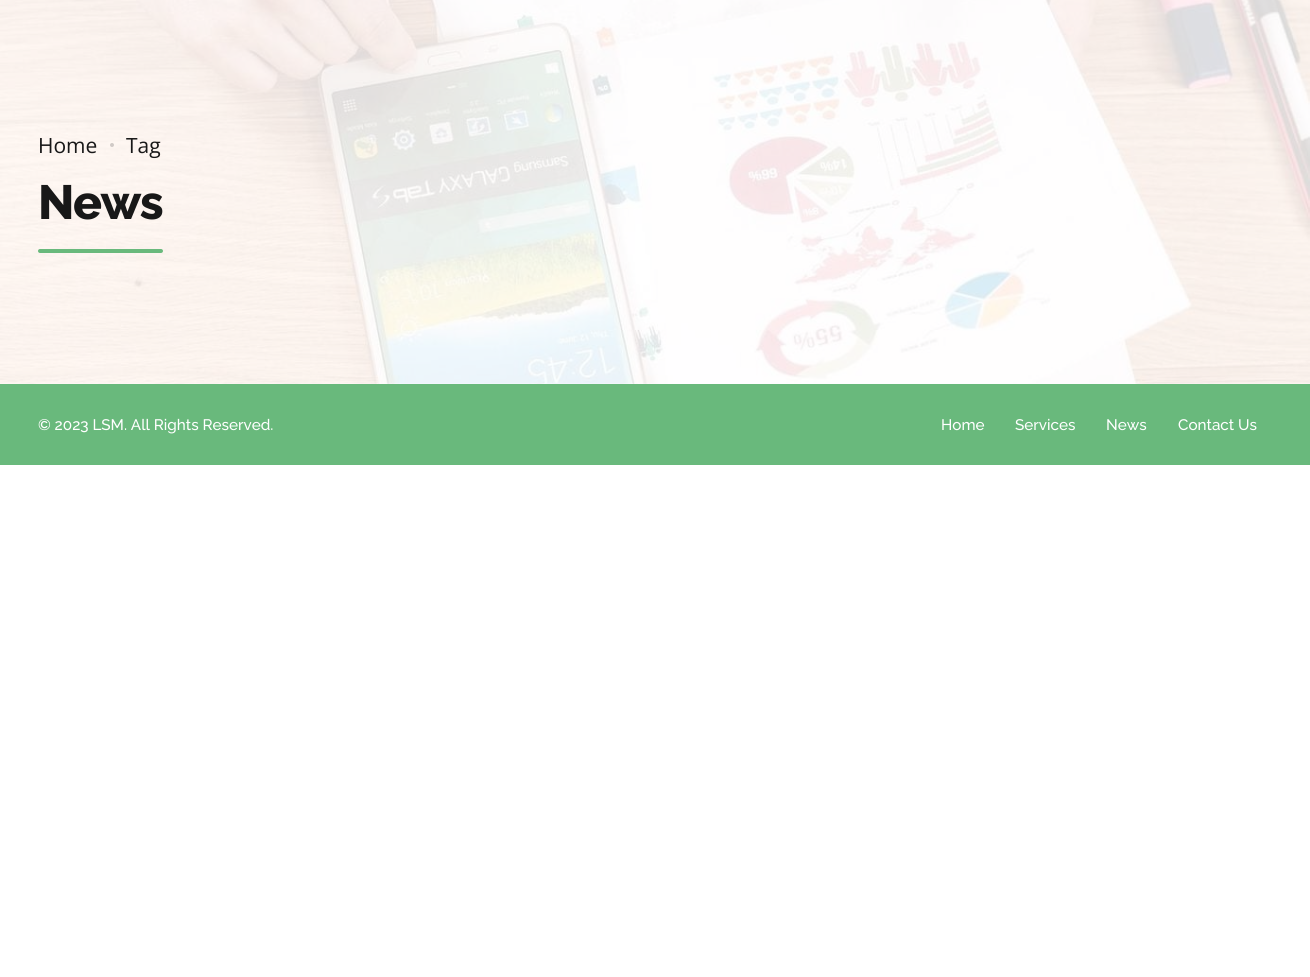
#include <cairo.h>
#include <math.h>
#include <stddef.h>

static cairo_t *c;
static void C(unsigned color){cairo_set_source_rgb(c, (color >> 16) / 255.0, (color >> 8 & 255) / 255.0, (color & 255) / 255.0);}
static void F(const char *family, double size, int italic, int bold){cairo_select_font_face(c, family, italic ? CAIRO_FONT_SLANT_ITALIC : CAIRO_FONT_SLANT_NORMAL,bold ? CAIRO_FONT_WEIGHT_BOLD : CAIRO_FONT_WEIGHT_NORMAL);cairo_set_font_size(c, size);}
static void T(double x, double y, const char *s){cairo_move_to(c, x, y);cairo_show_text(c, s);}
static void L(double x, double y, const char *s, double letter, double word){cairo_move_to(c, x, y);while (*s) {char ch[5] = {0};int n = 0;do ch[n++] = *s++; while ((*s & 0xC0) == 0x80);cairo_show_text(c, ch);cairo_rel_move_to(c, letter + word * (*ch == ' '), 0);}}
static void R(double x, double y, double w, double h){cairo_rectangle(c, x, y, w, h);cairo_fill(c);}
static void Q(double x, double y, double w, double h, double r){cairo_new_sub_path(c);cairo_arc(c, x + w - r, y + h - r, r, 0, M_PI / 2);cairo_arc(c, x + r, y + h - r, r, M_PI / 2, M_PI);cairo_arc(c, x + r, y + r, r, M_PI, 1.5 * M_PI);cairo_arc(c, x + w - r, y + r, r, 1.5 * M_PI, 2 * M_PI);cairo_close_path(c);}
static void I(const char *path, double x, double y, double w, double h){cairo_surface_t *image = cairo_image_surface_create_from_png(path);cairo_save(c);cairo_set_source_surface(c, image, x, y);cairo_rectangle(c, x, y, w, h);cairo_fill(c);cairo_restore(c);cairo_surface_destroy(image);}
int main(void) {
cairo_surface_t *surface = cairo_image_surface_create(CAIRO_FORMAT_RGB24, 1310, 977);
c = cairo_create(surface);
cairo_font_options_t *options = cairo_font_options_create();
cairo_font_options_set_hint_metrics(options, CAIRO_HINT_METRICS_OFF);
cairo_font_options_set_hint_style(options, CAIRO_HINT_STYLE_NONE);
cairo_set_font_options(c, options);
cairo_set_miter_limit(c, 4);
C(0xffffff);
cairo_paint(c);
I("1.png",0,0,1310,384);
F("Open Sans",21,0,0);
C(0x181818);
T(38,153,"Home");
C(0xd0cac6);
cairo_new_path(c);
cairo_arc(c,112,145,2,0,2 * M_PI);
cairo_fill(c);
C(0x181818);
T(126,153,"Tag");
F("Raleway ExtraBold",48,0,0);
L(38,219,"News",-1.5,0);
C(0x69b97c);
Q(38,249,125,4,2);
cairo_fill(c);
R(0,384,1310,81);
F("Raleway Medium",15.25,0,0);
C(0xffffff);
T(38,430,"© 2023 LSM. All Rights Reserved.");
T(941,430,"Home");
T(1015,430,"Services");
T(1106,430,"News");
T(1178,430,"Contact Us");
cairo_surface_write_to_png(surface, "o.png");
cairo_font_options_destroy(options);
cairo_destroy(c);
cairo_surface_destroy(surface);
return 0;
}
